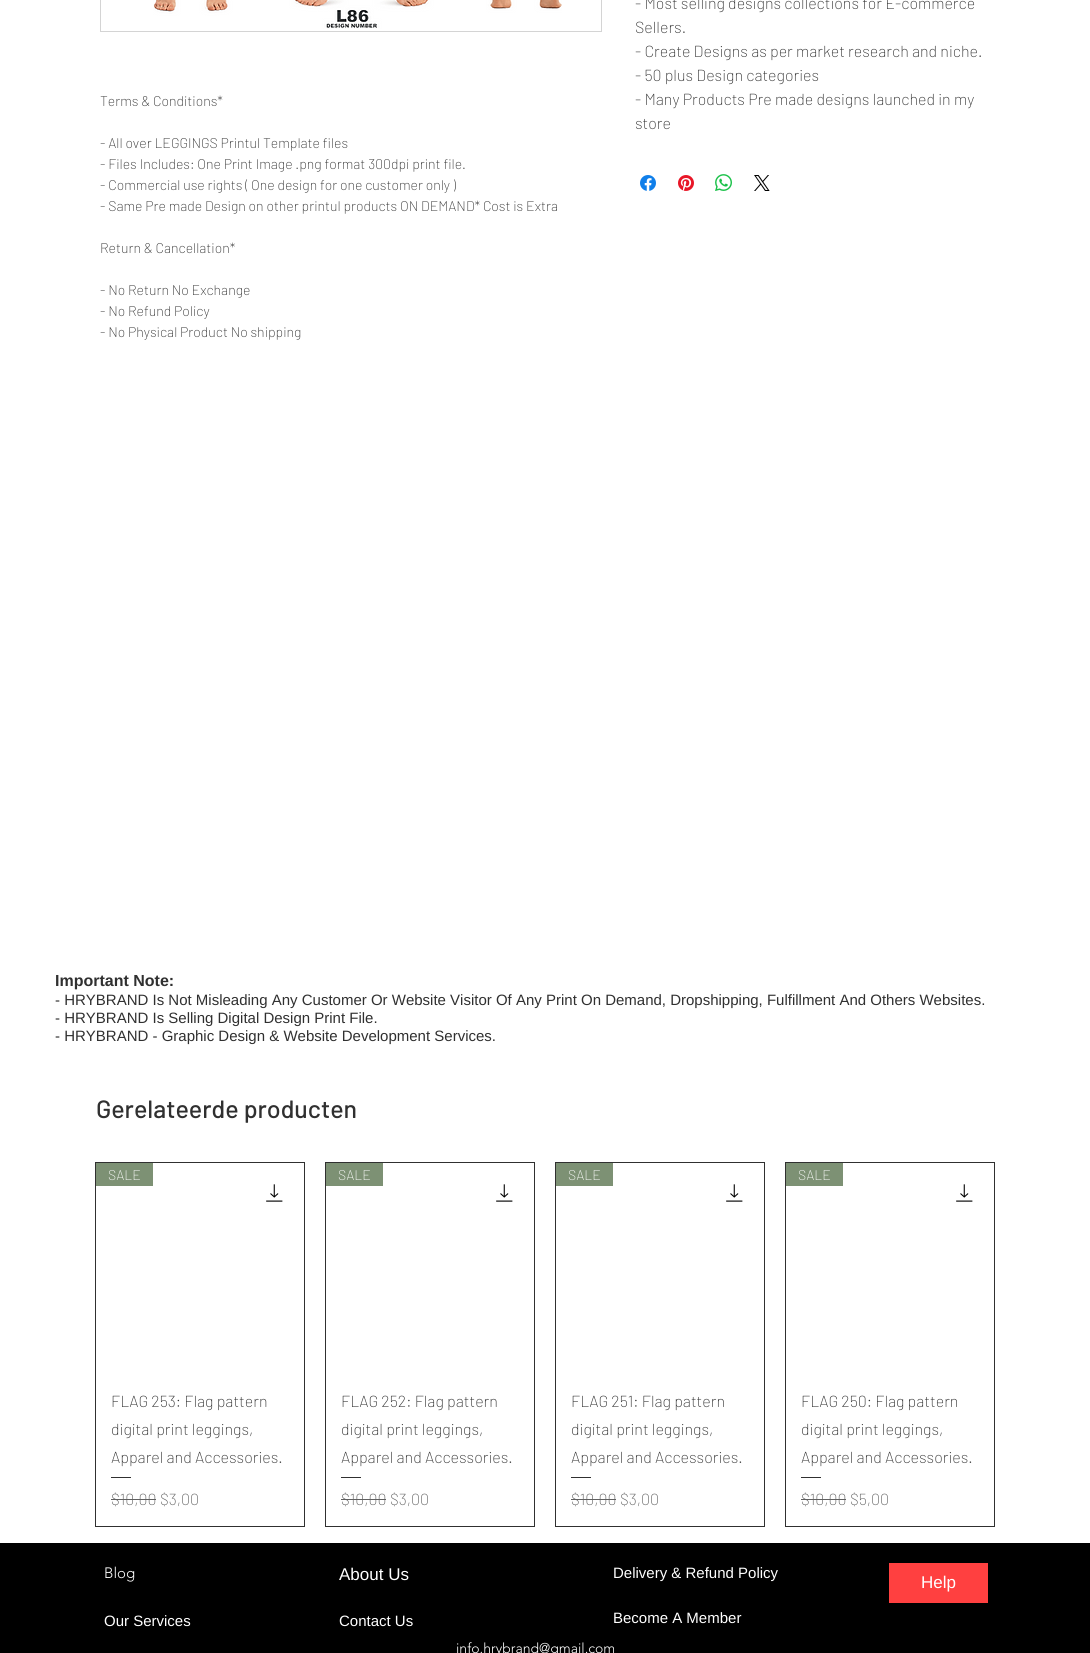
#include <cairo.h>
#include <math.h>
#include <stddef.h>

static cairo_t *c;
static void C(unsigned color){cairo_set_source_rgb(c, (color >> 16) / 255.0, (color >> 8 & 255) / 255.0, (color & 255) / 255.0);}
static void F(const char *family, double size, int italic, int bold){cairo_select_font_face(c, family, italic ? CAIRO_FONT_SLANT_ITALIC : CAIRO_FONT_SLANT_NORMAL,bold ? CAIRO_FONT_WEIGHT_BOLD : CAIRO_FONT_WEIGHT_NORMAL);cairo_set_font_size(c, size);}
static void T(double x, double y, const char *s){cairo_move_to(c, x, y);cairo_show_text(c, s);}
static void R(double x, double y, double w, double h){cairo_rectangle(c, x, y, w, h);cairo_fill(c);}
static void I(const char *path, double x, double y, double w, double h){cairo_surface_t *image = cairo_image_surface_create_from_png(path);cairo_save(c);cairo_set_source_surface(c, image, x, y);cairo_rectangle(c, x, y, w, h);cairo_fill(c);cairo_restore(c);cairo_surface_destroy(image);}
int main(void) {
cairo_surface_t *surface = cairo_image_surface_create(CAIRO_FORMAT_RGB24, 1090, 1653);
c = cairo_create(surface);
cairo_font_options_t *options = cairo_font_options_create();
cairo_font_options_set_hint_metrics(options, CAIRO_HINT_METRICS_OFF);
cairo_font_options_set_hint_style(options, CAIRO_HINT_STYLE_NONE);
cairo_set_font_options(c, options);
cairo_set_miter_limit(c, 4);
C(0xffffff);
cairo_paint(c);
F("Barlow ExtraLight",16,0,0);
C(0x303030);
T(635,9,"- Most selling designs collections for E-commerce");
T(635,33,"Sellers.");
T(635,57,"- Create Designs as per market research and niche.");
T(635,81,"- 50 plus Design categories");
T(635,105,"- Many Products Pre made designs launched in my");
T(635,129,"store");
I("1.png",640,175,16,16);
I("2.png",678,175,16,16);
I("3.png",715,174,17,17);
I("4.png",754,175,16,16);
cairo_rectangle(c,100.5,-.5,501,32);
C(0xd4d4d4);
cairo_set_line_width(c,1);
cairo_stroke(c);
I("5.png",153,0,409,29);
F("Barlow ExtraLight",14,0,0);
C(0x303030);
T(100,106,"Terms & Conditions*");
T(100,148,"- All over LEGGINGS Printul Template files");
T(100,169,"- Files Includes: One Print Image .png format 300dpi print file.");
T(100,190,"- Commercial use rights ( One design for one customer only )");
T(100,211,"- Same Pre made Design on other printul products ON DEMAND* Cost is Extra");
T(100,253,"Return & Cancellation*");
T(100,295,"- No Return No Exchange");
T(100,316,"- No Refund Policy");
T(100,337,"- No Physical Product No shipping");
F("Liberation Sans",16,0,1);
T(55,986,"Important Note:");
F("Liberation Sans",15,0,0);
T(55,1005,"- HRYBRAND Is Not Misleading Any Customer Or Website Visitor Of Any Print On Demand, Dropshipping, Fulfillment And Others Websites.");
T(55,1023,"- HRYBRAND Is Selling Digital Design Print File.");
T(55,1041,"- HRYBRAND - Graphic Design & Website Development Services.");
F("Barlow Medium",25,0,0);
T(96,1118,"Gerelateerde producten");
cairo_rectangle(c,95.5,1162.5,209,364);
cairo_stroke(c);
C(0x7d9174);
R(96,1163,57,23);
F("Barlow ExtraLight",14,0,0);
C(0xffffff);
T(108,1180,"SALE");
I("6.png",266,1184,17,18);
F("Barlow ExtraLight",16,0,0);
C(0x303030);
T(111,1407,"FLAG 253: Flag pattern");
T(111,1435,"digital print leggings,");
T(111,1463,"Apparel and Accessories.");
R(111,1477,20,1);
C(0x606060);
T(111,1505,"$10,00");
R(111,1499,45,1);
T(160,1505,"$3,00");
cairo_rectangle(c,325.5,1162.5,209,364);
C(0x303030);
cairo_stroke(c);
C(0x7d9174);
R(326,1163,57,23);
F("Barlow ExtraLight",14,0,0);
C(0xffffff);
T(338,1180,"SALE");
I("6.png",496,1184,17,18);
F("Barlow ExtraLight",16,0,0);
C(0x303030);
T(341,1407,"FLAG 252: Flag pattern");
T(341,1435,"digital print leggings,");
T(341,1463,"Apparel and Accessories.");
R(341,1477,20,1);
C(0x606060);
T(341,1505,"$10,00");
R(341,1499,45,1);
T(390,1505,"$3,00");
cairo_rectangle(c,555.5,1162.5,209,364);
C(0x303030);
cairo_stroke(c);
C(0x7d9174);
R(556,1163,57,23);
F("Barlow ExtraLight",14,0,0);
C(0xffffff);
T(568,1180,"SALE");
I("6.png",726,1184,17,18);
F("Barlow ExtraLight",16,0,0);
C(0x303030);
T(571,1407,"FLAG 251: Flag pattern");
T(571,1435,"digital print leggings,");
T(571,1463,"Apparel and Accessories.");
R(571,1477,20,1);
C(0x606060);
T(571,1505,"$10,00");
R(571,1499,45,1);
T(620,1505,"$3,00");
cairo_rectangle(c,785.5,1162.5,209,364);
C(0x303030);
cairo_stroke(c);
C(0x7d9174);
R(786,1163,57,23);
F("Barlow ExtraLight",14,0,0);
C(0xffffff);
T(798,1180,"SALE");
I("6.png",956,1184,17,18);
F("Barlow ExtraLight",16,0,0);
C(0x303030);
T(801,1407,"FLAG 250: Flag pattern");
T(801,1435,"digital print leggings,");
T(801,1463,"Apparel and Accessories.");
R(801,1477,20,1);
C(0x606060);
T(801,1505,"$10,00");
R(801,1499,45,1);
T(850,1505,"$5,00");
C(0x000000);
R(0,1543,1090,110);
F("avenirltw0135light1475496 Light",15,0,0);
C(0xffffff);
T(104,1578,"Blog");
F("Liberation Sans",17,0,0);
T(339,1580,"About Us");
F("Liberation Sans",15,0,0);
T(613,1578,"Delivery & Refund Policy");
C(0xff4040);
R(889,1563,99,40);
F("Liberation Sans",17,0,0);
C(0xffffff);
T(921,1588,"Help");
F("Liberation Sans",15,0,0);
T(104,1626,"Our Services");
T(339,1626,"Contact Us");
T(613,1623,"Become A Member");
F("avenirltw0135light1475496 Light",14,0,0);
T(456,1653,"info.hrybrand@gmail.com");
cairo_surface_write_to_png(surface, "o.png");
cairo_font_options_destroy(options);
cairo_destroy(c);
cairo_surface_destroy(surface);
return 0;
}
